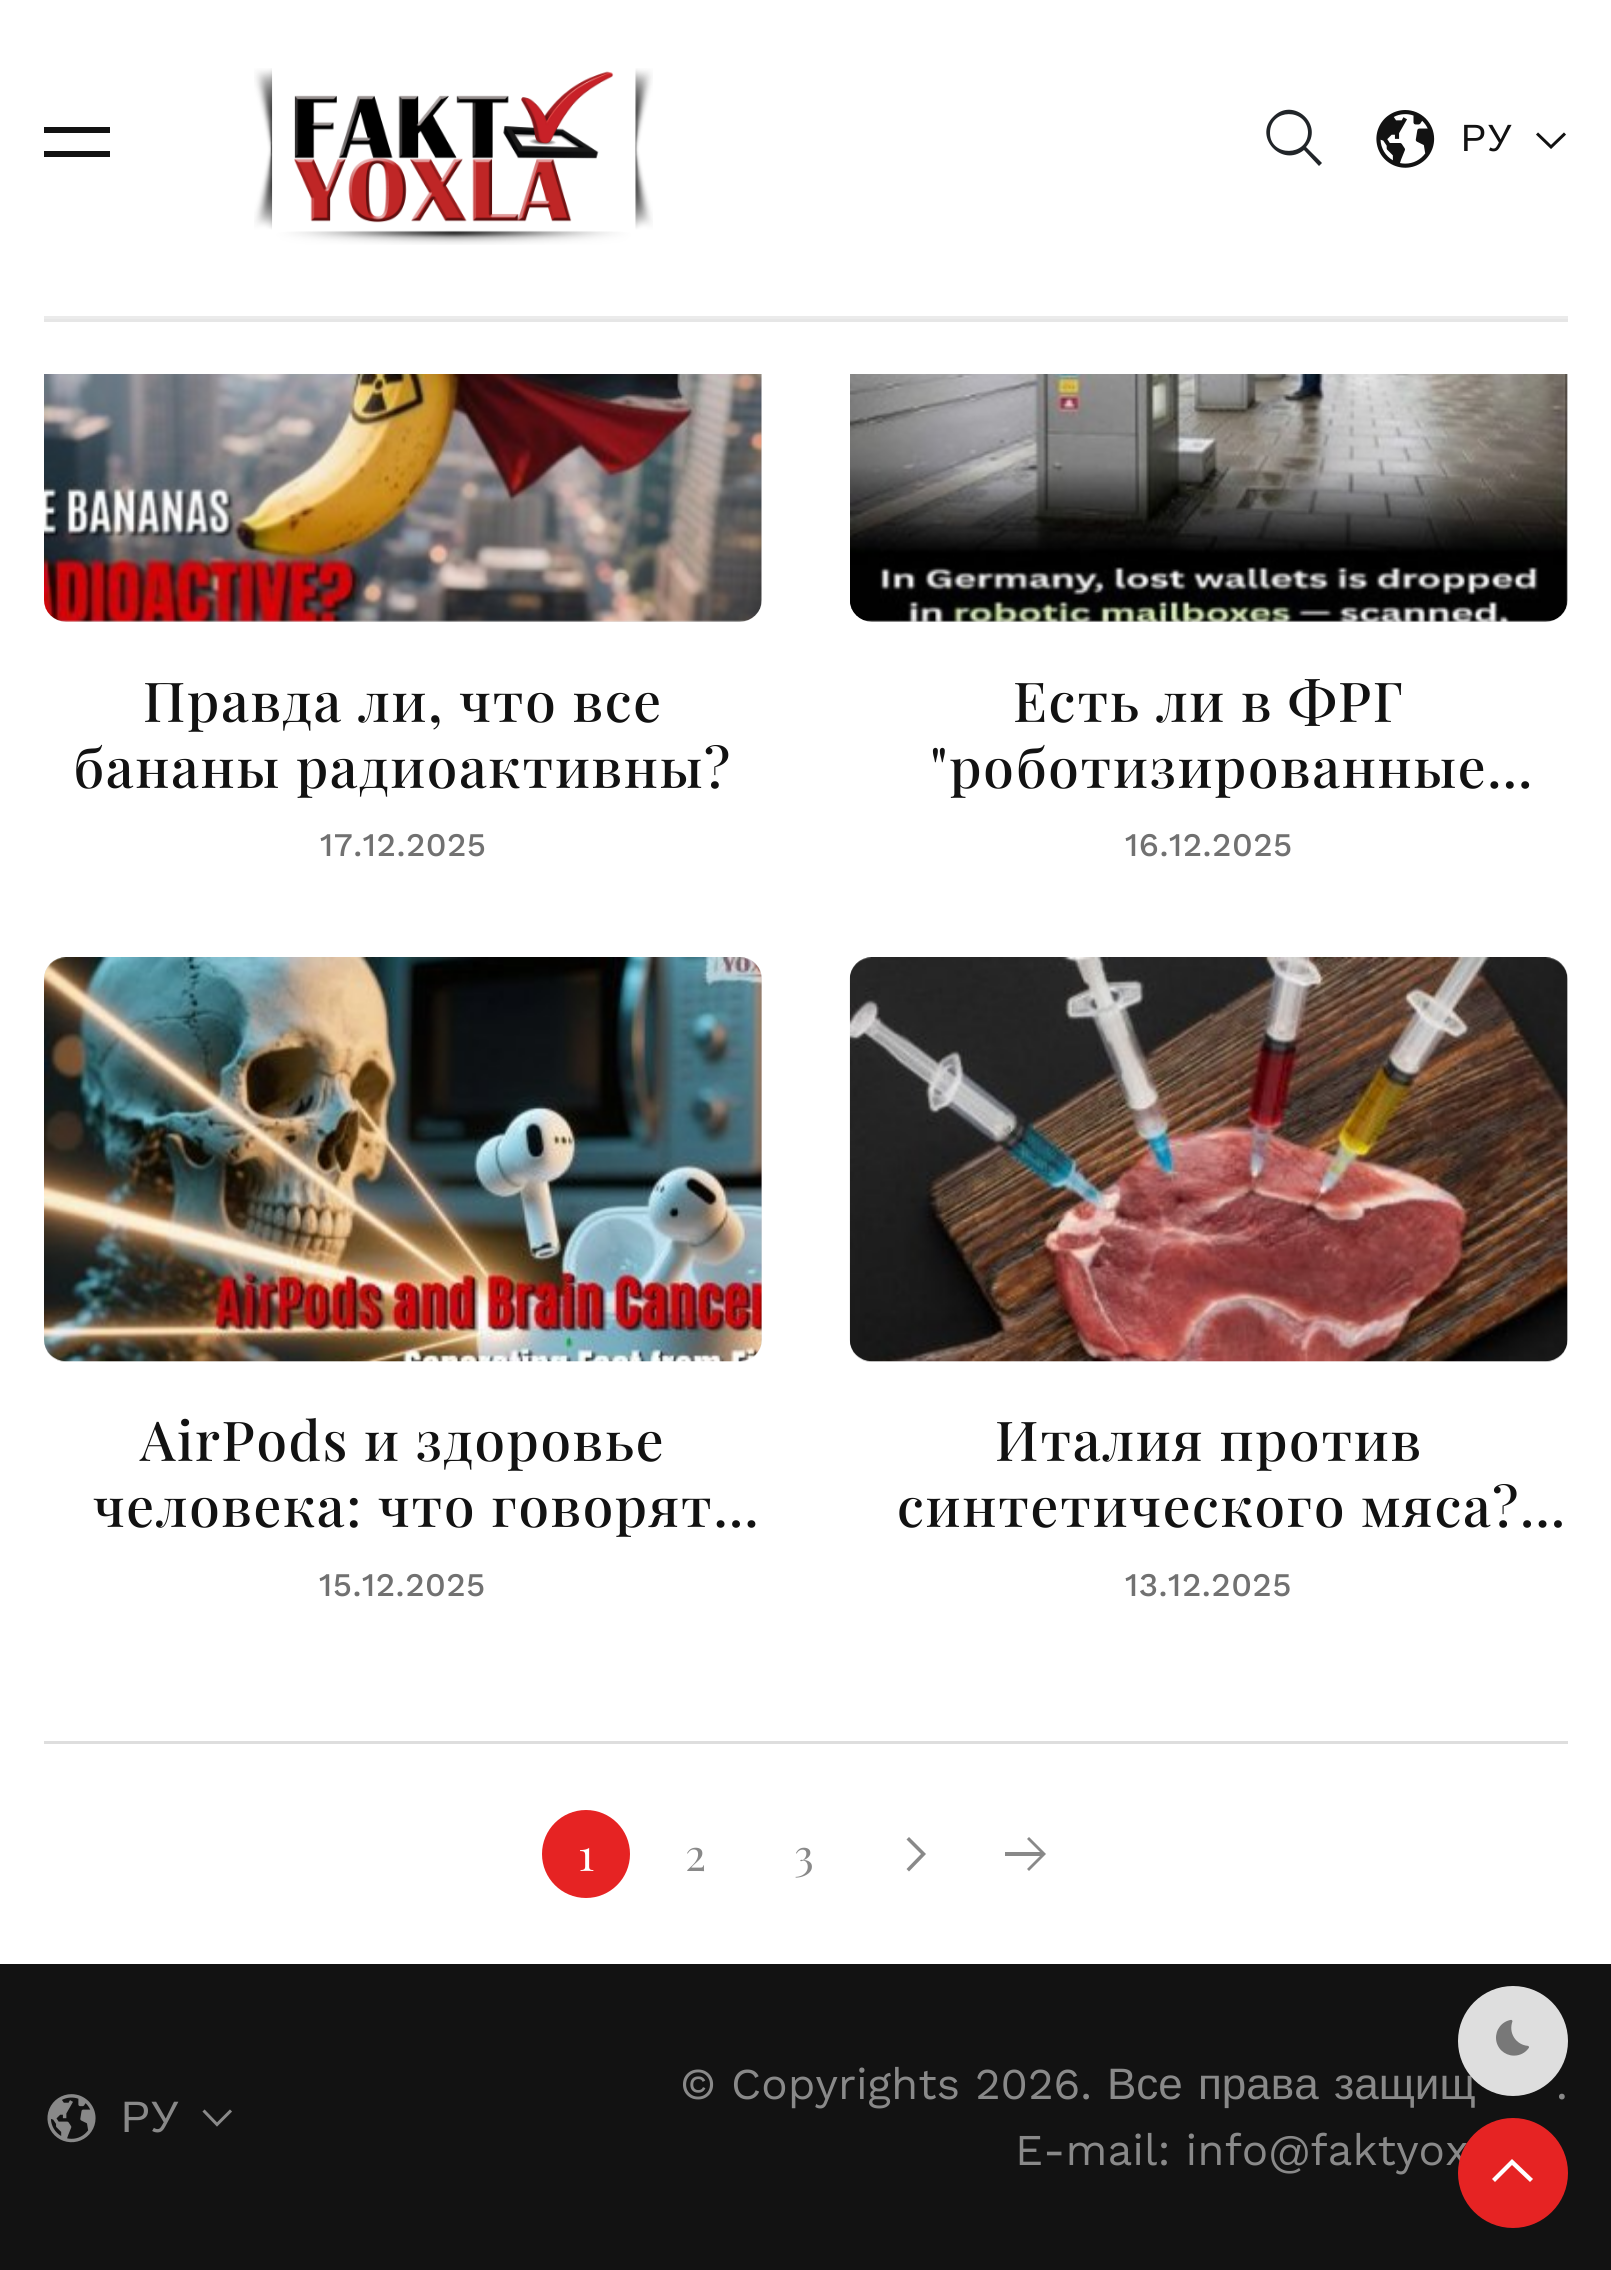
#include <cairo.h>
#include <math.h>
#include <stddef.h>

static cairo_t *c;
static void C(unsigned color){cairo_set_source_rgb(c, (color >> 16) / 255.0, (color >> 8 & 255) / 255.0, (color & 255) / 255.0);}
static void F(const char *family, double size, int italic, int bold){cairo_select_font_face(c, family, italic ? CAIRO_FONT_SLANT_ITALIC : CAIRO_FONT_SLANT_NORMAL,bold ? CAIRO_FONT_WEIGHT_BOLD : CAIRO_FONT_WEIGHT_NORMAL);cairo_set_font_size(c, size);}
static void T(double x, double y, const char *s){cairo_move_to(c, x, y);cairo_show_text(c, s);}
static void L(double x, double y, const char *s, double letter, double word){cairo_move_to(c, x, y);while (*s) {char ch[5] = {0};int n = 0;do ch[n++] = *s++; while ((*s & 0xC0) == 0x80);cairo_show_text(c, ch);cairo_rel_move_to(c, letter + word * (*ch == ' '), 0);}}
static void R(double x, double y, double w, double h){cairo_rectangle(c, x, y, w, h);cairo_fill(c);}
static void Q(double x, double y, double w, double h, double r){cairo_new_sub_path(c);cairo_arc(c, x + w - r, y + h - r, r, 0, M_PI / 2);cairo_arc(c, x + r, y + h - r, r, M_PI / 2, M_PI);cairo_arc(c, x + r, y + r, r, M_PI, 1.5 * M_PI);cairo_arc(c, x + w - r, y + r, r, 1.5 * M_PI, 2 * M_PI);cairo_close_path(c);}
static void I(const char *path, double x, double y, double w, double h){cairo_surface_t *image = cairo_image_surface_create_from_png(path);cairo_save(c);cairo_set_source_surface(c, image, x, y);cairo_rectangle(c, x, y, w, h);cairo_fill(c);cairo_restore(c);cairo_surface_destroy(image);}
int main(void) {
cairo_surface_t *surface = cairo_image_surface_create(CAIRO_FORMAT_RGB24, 1611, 2270);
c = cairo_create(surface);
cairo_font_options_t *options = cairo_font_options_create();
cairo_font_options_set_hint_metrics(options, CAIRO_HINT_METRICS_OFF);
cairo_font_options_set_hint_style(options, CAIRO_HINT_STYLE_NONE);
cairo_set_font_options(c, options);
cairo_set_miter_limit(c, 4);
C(0xffffff);
cairo_paint(c);
C(0xf7f7f7);
Q(44,220,718,402,22);
cairo_fill(c);
cairo_set_source_rgba(c,0.537,0.537,0.537,0.15);
Q(44,220,718,402,22);
cairo_fill(c);
C(0xf7f7f7);
Q(850,220,718,402,22);
cairo_fill(c);
cairo_set_source_rgba(c,0.537,0.537,0.537,0.15);
Q(850,220,718,402,22);
cairo_fill(c);
C(0xffffff);
R(44,220,1524,154);
C(0xe6e6e6);
cairo_new_path(c);
cairo_move_to(c,44,319);
cairo_line_to(c,44,322);
cairo_line_to(c,1568,322);
cairo_line_to(c,1568,-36);
cairo_line_to(c,1568,319);
cairo_close_path(c);
cairo_fill(c);
C(0xebebeb);
R(44,316,1524,3);
C(0x121212);
R(44,127,66,6);
R(44,151,66,6);
I("1.png",254,68,399,177);
C(0x212529);
cairo_new_path(c);
cairo_move_to(c,1322,163);
cairo_line_to(c,1306,147);
cairo_curve_to(c,1325,125,1293,96,1273,117);
cairo_curve_to(c,1253,137,1282,168,1304,150);
cairo_line_to(c,1319,166);
cairo_close_path(c);
cairo_move_to(c,1270,133);
cairo_curve_to(c,1270,108,1307,108,1308,132);
cairo_curve_to(c,1308,157,1270,157,1270,133);
cairo_close_path(c);
cairo_fill(c);
I("2.png",1376,110,59,58);
F("Liberation Sans",38,0,0);
C(0x121212);
L(1461,151,"РУ",1,0);
cairo_new_path(c);
cairo_move_to(c,1537,133.5);
cairo_line_to(c,1551,147);
cairo_line_to(c,1565,133.5);
cairo_set_line_width(c,3);
cairo_stroke(c);
I("3.png",44,374,718,248);
F("Playfair Display Medium",55,0,0);
L(143,722,"Правда ли, что все",1.65,0);
L(73,788,"бананы радиоактивны?",1.65,0);
F("Work Sans Medium",33,0,0);
C(0x717171);
L(320,856,"17.12.2025",.5,0);
I("4.png",850,374,718,248);
F("Playfair Display Medium",55,0,0);
C(0x121212);
L(1013,722,"Есть ли в ФРГ",1.65,0);
L(930,788,"\"роботизированные…",1.65,0);
F("Work Sans Medium",33,0,0);
C(0x717171);
L(1125,856,"16.12.2025",.5,0);
C(0xf7f7f7);
Q(44,957,718,404,22);
cairo_fill(c);
cairo_set_source_rgba(c,0.537,0.537,0.537,0.15);
Q(44,957,718,404,22);
cairo_fill(c);
I("5.png",44,957,718,405);
F("Playfair Display Medium",55,0,0);
C(0x121212);
L(140,1461,"AirPods и здоровье",1.65,0);
L(93,1527,"человека: что говорят…",1.65,0);
F("Work Sans Medium",33,0,0);
C(0x717171);
L(319,1596,"15.12.2025",.5,0);
C(0xf7f7f7);
Q(850,957,718,404,22);
cairo_fill(c);
cairo_set_source_rgba(c,0.537,0.537,0.537,0.15);
Q(850,957,718,404,22);
cairo_fill(c);
I("6.png",849,957,719,405);
F("Playfair Display Medium",55,0,0);
C(0x121212);
L(995,1461,"Италия против",1.65,0);
L(897,1527,"синтетического мяса?…",1.65,0);
F("Work Sans Medium",33,0,0);
C(0x717171);
L(1125,1596,"13.12.2025",.5,0);
C(0xdedede);
R(44,1741,1524,3);
C(0xe62323);
cairo_new_path(c);
cairo_arc(c,586,1854,44,0,2 * M_PI);
cairo_fill(c);
F("Playfair Display",44,0,0);
C(0xffffff);
T(578,1871,"1");
C(0x898989);
T(685,1871,"2");
T(794,1871,"3");
cairo_new_path(c);
cairo_move_to(c,926,1854);
cairo_line_to(c,909,1871.5);
cairo_line_to(c,906.5,1869);
cairo_line_to(c,921,1854);
cairo_line_to(c,906.5,1839.5);
cairo_line_to(c,909,1837);
cairo_close_path(c);
cairo_fill(c);
cairo_new_path(c);
cairo_move_to(c,1029,1837);
cairo_line_to(c,1027,1839);
cairo_line_to(c,1040,1852);
cairo_line_to(c,1005,1852);
cairo_line_to(c,1005,1856);
cairo_line_to(c,1040,1856);
cairo_line_to(c,1027,1869);
cairo_line_to(c,1029,1871);
cairo_line_to(c,1046,1854);
cairo_close_path(c);
cairo_fill(c);
C(0x121212);
R(0,1964,1611,306);
F("Liberation Sans",44,0,0);
C(0x898989);
T(1334,2099,"защищ");
F("Work Sans",44,0,0);
T(1556,2099,".");
C(0xdedede);
cairo_new_path(c);
cairo_arc(c,1513,2041,55,0,2 * M_PI);
cairo_fill(c);
I("7.png",1496,2019,33,37);
C(0x898989);
T(1015,2165,"E-mail: info@faktyox");
C(0xe62323);
cairo_new_path(c);
cairo_arc(c,1513,2173,55,0,2 * M_PI);
cairo_fill(c);
C(0xffffff);
cairo_new_path(c);
cairo_move_to(c,1512,2159);
cairo_line_to(c,1533,2179);
cairo_line_to(c,1530,2182);
cairo_line_to(c,1512,2165);
cairo_line_to(c,1495,2182);
cairo_line_to(c,1492,2179);
cairo_close_path(c);
cairo_fill(c);
I("8.png",47,2094,49,49);
F("Liberation Sans",44,0,0);
C(0x898989);
T(121,2132,"РУ");
cairo_new_path(c);
cairo_move_to(c,203.5,2110.5);
cairo_line_to(c,217,2124.5);
cairo_line_to(c,231,2110.5);
cairo_stroke(c);
F("Work Sans",44,0,0);
T(680,2099,"© Copyrights 2026.");
F("Liberation Sans",44,0,0);
T(1107,2099,"Все");
T(1198,2099,"права");
cairo_surface_write_to_png(surface, "o.png");
cairo_font_options_destroy(options);
cairo_destroy(c);
cairo_surface_destroy(surface);
return 0;
}
